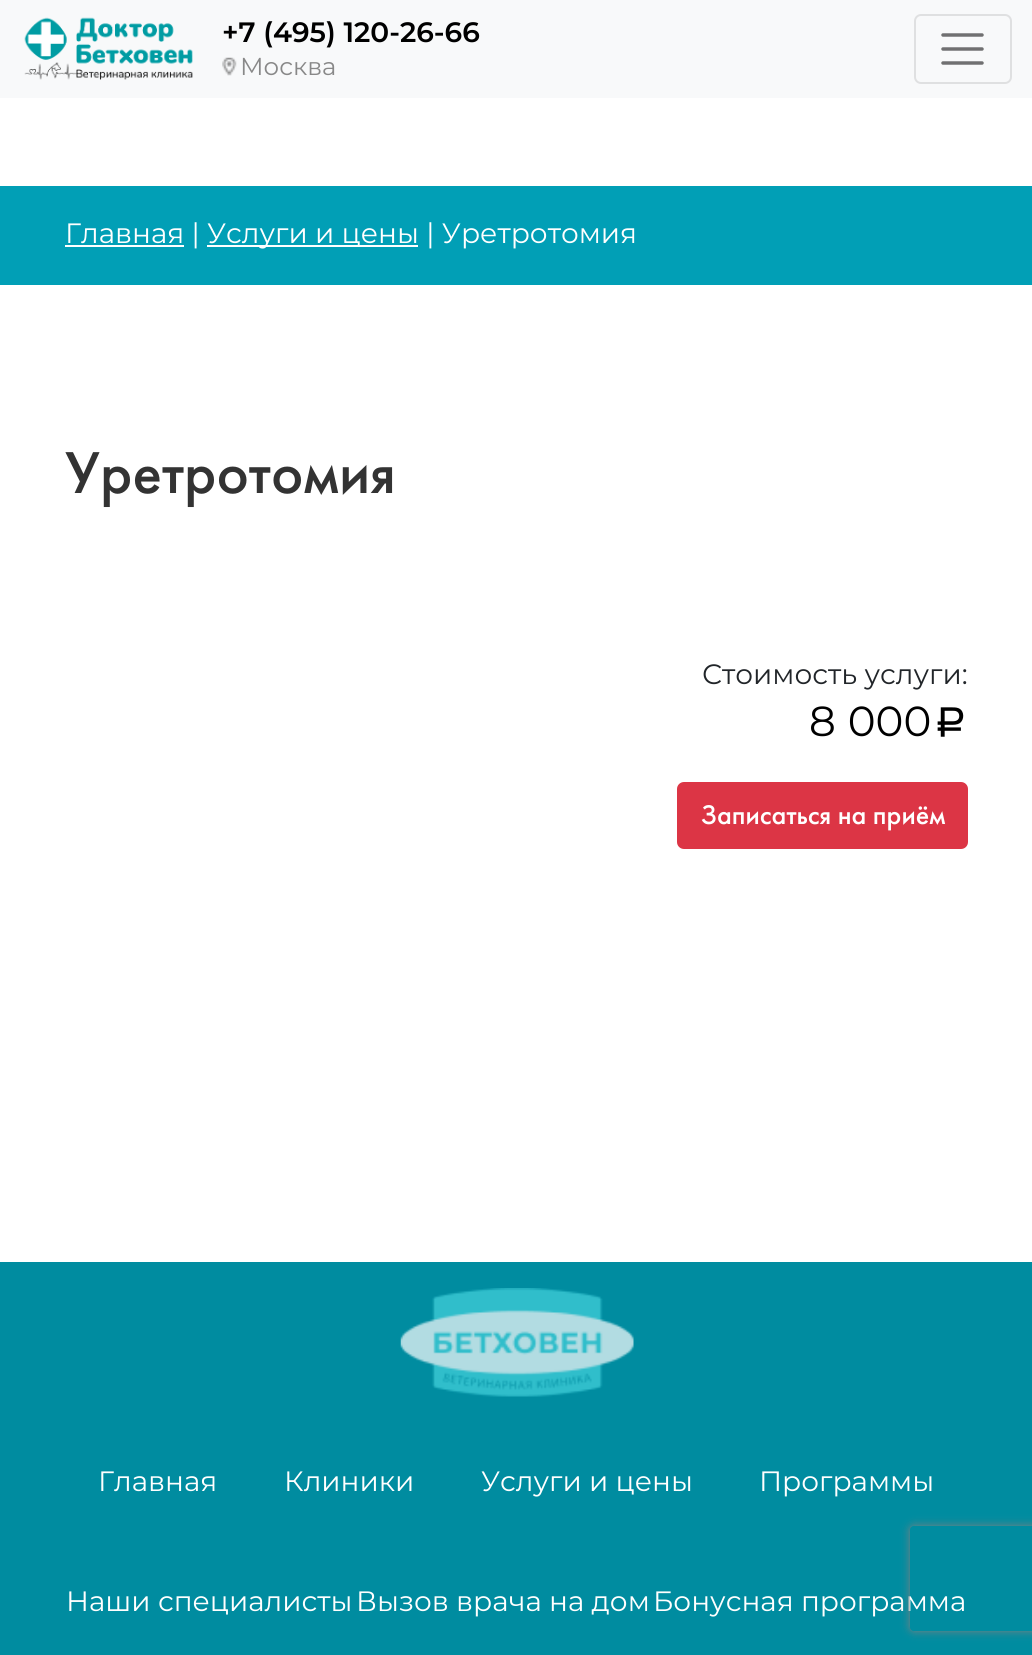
#include <cairo.h>
#include <math.h>
#include <stddef.h>

static cairo_t *c;
static void C(unsigned color){cairo_set_source_rgb(c, (color >> 16) / 255.0, (color >> 8 & 255) / 255.0, (color & 255) / 255.0);}
static void F(const char *family, double size, int italic, int bold){cairo_select_font_face(c, family, italic ? CAIRO_FONT_SLANT_ITALIC : CAIRO_FONT_SLANT_NORMAL,bold ? CAIRO_FONT_WEIGHT_BOLD : CAIRO_FONT_WEIGHT_NORMAL);cairo_set_font_size(c, size);}
static void T(double x, double y, const char *s){cairo_move_to(c, x, y);cairo_show_text(c, s);}
static void L(double x, double y, const char *s, double letter, double word){cairo_move_to(c, x, y);while (*s) {char ch[5] = {0};int n = 0;do ch[n++] = *s++; while ((*s & 0xC0) == 0x80);cairo_show_text(c, ch);cairo_rel_move_to(c, letter + word * (*ch == ' '), 0);}}
static void R(double x, double y, double w, double h){cairo_rectangle(c, x, y, w, h);cairo_fill(c);}
static void Q(double x, double y, double w, double h, double r){cairo_new_sub_path(c);cairo_arc(c, x + w - r, y + h - r, r, 0, M_PI / 2);cairo_arc(c, x + r, y + h - r, r, M_PI / 2, M_PI);cairo_arc(c, x + r, y + r, r, M_PI, 1.5 * M_PI);cairo_arc(c, x + w - r, y + r, r, 1.5 * M_PI, 2 * M_PI);cairo_close_path(c);}
static void S(double x, double y, double w, double h, double r, double blur, double alpha){cairo_push_group_with_content(c, CAIRO_CONTENT_ALPHA);cairo_set_operator(c, CAIRO_OPERATOR_SOURCE);for (int i = 15; i >= -15 && fmin(w, h) + blur * i / 3 > 0; i -= 2) {double e = blur * i / 6;cairo_set_source_rgba(c, 0, 0, 0, alpha * erfc((i - 1) / 8.5) / 2);Q(x - e, y - e, w + 2 * e, h + 2 * e, fmax(0, fmin(r + e + blur * .6, fmin(w, h) / 2 + e)));cairo_fill(c);}cairo_pattern_t *soft = cairo_pop_group(c);cairo_mask(c, soft);cairo_pattern_destroy(soft);}
static void I(const char *path, double x, double y, double w, double h){cairo_surface_t *image = cairo_image_surface_create_from_png(path);cairo_save(c);cairo_set_source_surface(c, image, x, y);cairo_rectangle(c, x, y, w, h);cairo_fill(c);cairo_restore(c);cairo_surface_destroy(image);}
int main(void) {
cairo_surface_t *surface = cairo_image_surface_create(CAIRO_FORMAT_RGB24, 1032, 1655);
c = cairo_create(surface);
cairo_font_options_t *options = cairo_font_options_create();
cairo_font_options_set_hint_metrics(options, CAIRO_HINT_METRICS_OFF);
cairo_font_options_set_hint_style(options, CAIRO_HINT_STYLE_NONE);
cairo_set_font_options(c, options);
cairo_set_miter_limit(c, 4);
C(0xffffff);
cairo_paint(c);
C(0xf8f9fa);
R(0,0,1032,98);
I("1.png",24,17,169,63);
F("Montserrat SemiBold",28,0,0);
C(0x000000);
T(222,42,"+7 (495) 120-26-66");
I("2.png",222,57,15,19);
F("Montserrat",24.5,0,0);
C(0x888888);
T(240,75,"Москва");
Q(915,15,96,68,6);
C(0xdfe0e1);
cairo_stroke(c);
cairo_new_path(c);
cairo_move_to(c,943,35);
cairo_line_to(c,982,35);
cairo_move_to(c,943,49);
cairo_line_to(c,982,49);
cairo_move_to(c,943,63);
cairo_line_to(c,982,63);
C(0x707071);
cairo_set_line_width(c,3.5);
cairo_set_line_cap(c,CAIRO_LINE_CAP_ROUND);
cairo_stroke(c);
C(0x019fb6);
R(0,186,1032,99);
C(0xffffff);
R(65,245,119,2);
F("Montserrat",28,0,0);
T(65,243,"Главная |");
R(207,245,211,2);
T(207,243,"Услуги и цены | Уретротомия");
F("Futura PT Medium",61.25,0,0);
C(0x333333);
T(65,493,"Уретротомия");
F("Montserrat",28,0,0);
C(0x212529);
T(702,684,"Стоимость услуги:");
F("Montserrat",42,0,0);
C(0x000000);
L(809,736,"8 000",0,1);
I("3.png",937,707,27,30);
C(0xdc3545);
Q(678,783,289,65,6);
cairo_fill_preserve(c);
cairo_set_line_width(c,2);
cairo_set_line_cap(c,CAIRO_LINE_CAP_BUTT);
cairo_stroke(c);
F("Futura PT Medium",28,0,0);
C(0xffffff);
T(701,824,"Записаться на приём");
C(0x008ca0);
R(0,1262,1032,393);
I("4.png",400,1288,234,109);
F("Montserrat",28,0,0);
C(0xffffff);
T(98,1491,"Главная");
T(284,1491,"Клиники");
T(481,1491,"Услуги и цены");
T(759,1491,"Программы");
T(66,1611,"Наши специалисты");
T(356,1611,"Вызов врача на дом");
T(653,1611,"Бонусная программа");
cairo_save(c);
cairo_set_fill_rule(c,CAIRO_FILL_RULE_EVEN_ODD);
cairo_new_path(c);
cairo_move_to(c,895,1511);
cairo_line_to(c,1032,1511);
cairo_line_to(c,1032,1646);
cairo_line_to(c,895,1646);
cairo_close_path(c);
cairo_move_to(c,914,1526);
cairo_line_to(c,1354,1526);
cairo_curve_to(c,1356,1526,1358,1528,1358,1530);
cairo_line_to(c,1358,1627);
cairo_curve_to(c,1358,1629,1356,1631,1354,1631);
cairo_line_to(c,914,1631);
cairo_curve_to(c,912,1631,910,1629,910,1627);
cairo_line_to(c,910,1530);
cairo_curve_to(c,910,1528,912,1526,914,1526);
cairo_close_path(c);
cairo_clip(c);
C(0x808080);
S(910,1526,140,105,4,4.5,1);
cairo_restore(c);
cairo_surface_write_to_png(surface, "o.png");
cairo_font_options_destroy(options);
cairo_destroy(c);
cairo_surface_destroy(surface);
return 0;
}
